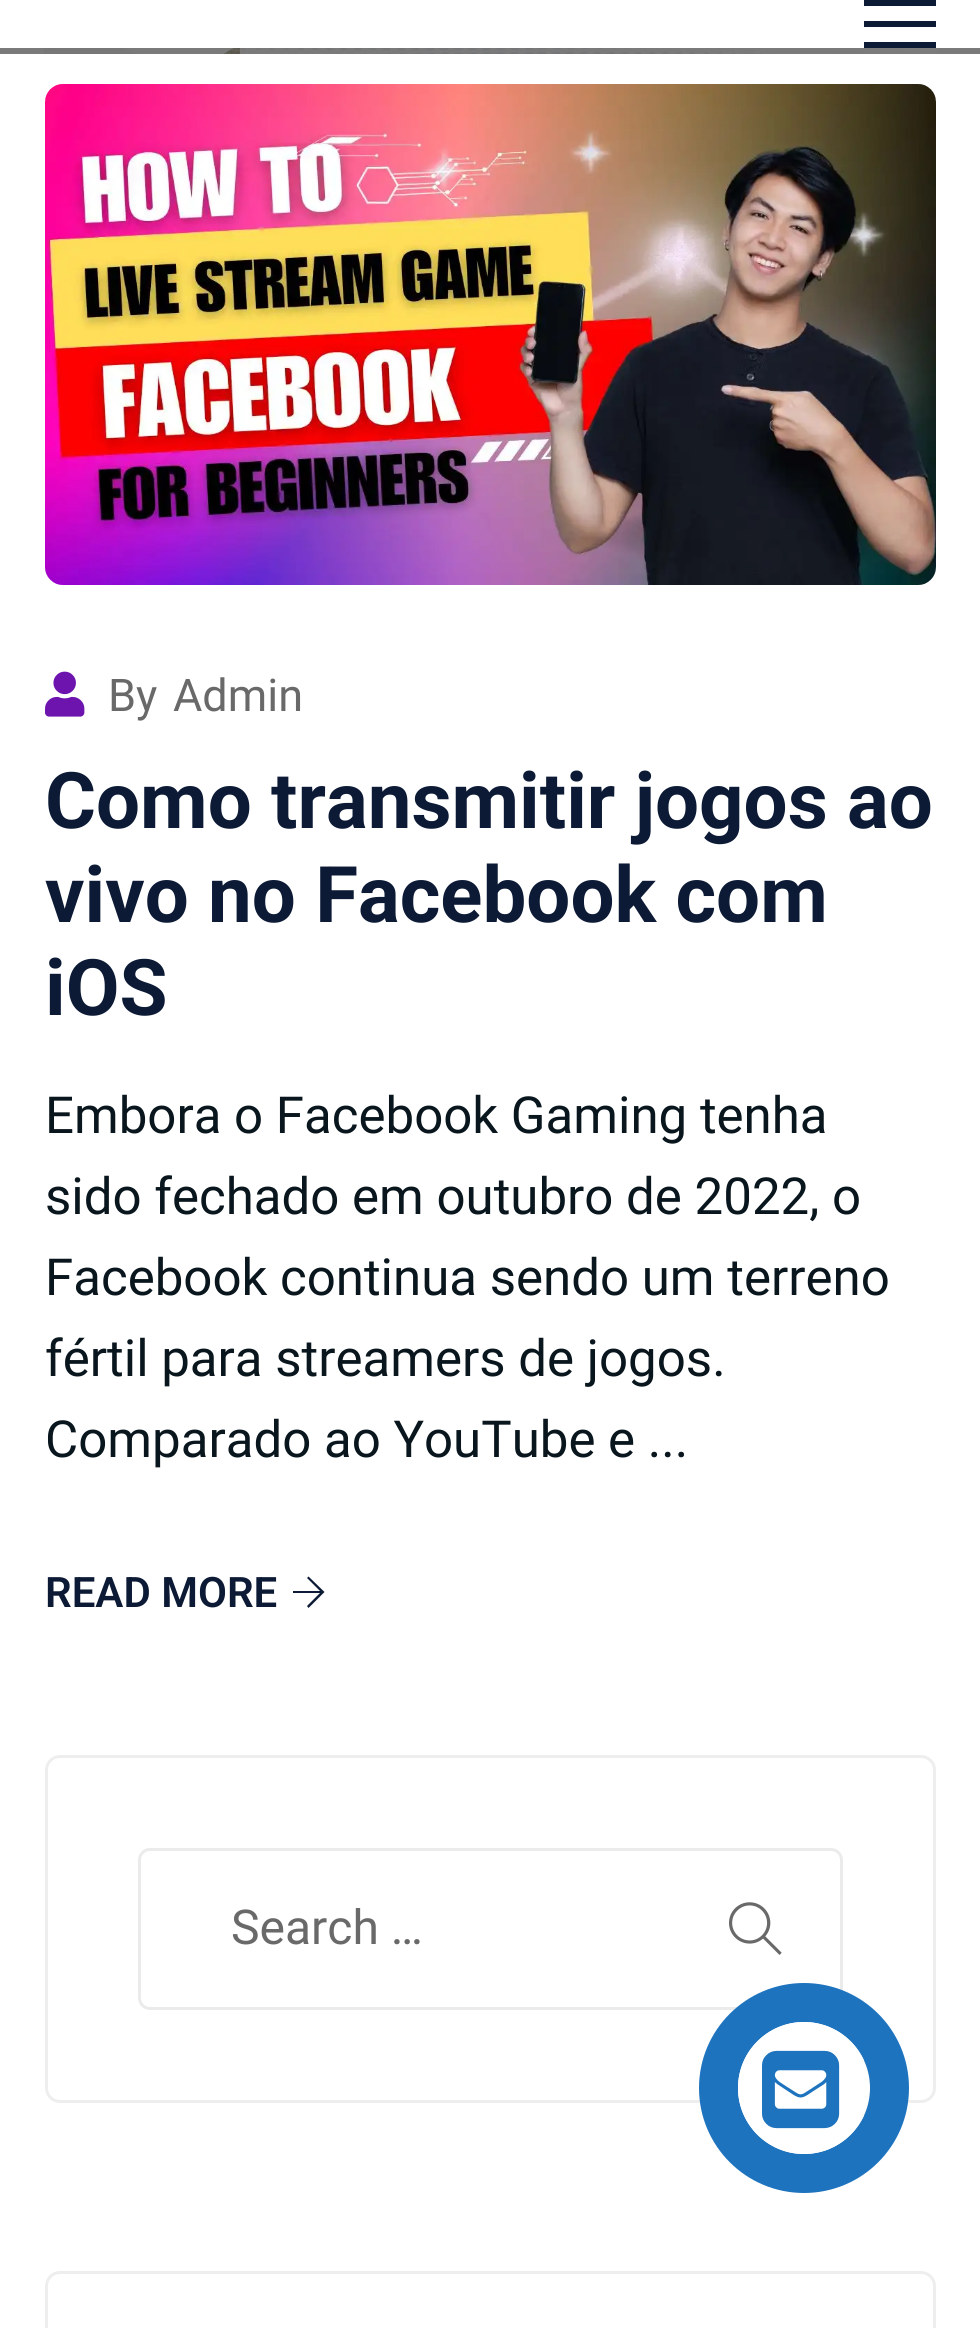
#include <cairo.h>
#include <math.h>
#include <stddef.h>

static cairo_t *c;
static void C(unsigned color){cairo_set_source_rgb(c, (color >> 16) / 255.0, (color >> 8 & 255) / 255.0, (color & 255) / 255.0);}
static void F(const char *family, double size, int italic, int bold){cairo_select_font_face(c, family, italic ? CAIRO_FONT_SLANT_ITALIC : CAIRO_FONT_SLANT_NORMAL,bold ? CAIRO_FONT_WEIGHT_BOLD : CAIRO_FONT_WEIGHT_NORMAL);cairo_set_font_size(c, size);}
static void T(double x, double y, const char *s){cairo_move_to(c, x, y);cairo_show_text(c, s);}
static void R(double x, double y, double w, double h){cairo_rectangle(c, x, y, w, h);cairo_fill(c);}
static void Q(double x, double y, double w, double h, double r){cairo_new_sub_path(c);cairo_arc(c, x + w - r, y + h - r, r, 0, M_PI / 2);cairo_arc(c, x + r, y + h - r, r, M_PI / 2, M_PI);cairo_arc(c, x + r, y + r, r, M_PI, 1.5 * M_PI);cairo_arc(c, x + w - r, y + r, r, 1.5 * M_PI, 2 * M_PI);cairo_close_path(c);}
static void I(const char *path, double x, double y, double w, double h){cairo_surface_t *image = cairo_image_surface_create_from_png(path);cairo_save(c);cairo_set_source_surface(c, image, x, y);cairo_rectangle(c, x, y, w, h);cairo_fill(c);cairo_restore(c);cairo_surface_destroy(image);}
int main(void) {
cairo_surface_t *surface = cairo_image_surface_create(CAIRO_FORMAT_RGB24, 980, 2328);
c = cairo_create(surface);
cairo_font_options_t *options = cairo_font_options_create();
cairo_font_options_set_hint_metrics(options, CAIRO_HINT_METRICS_OFF);
cairo_font_options_set_hint_style(options, CAIRO_HINT_STYLE_NONE);
cairo_set_font_options(c, options);
cairo_set_miter_limit(c, 4);
C(0xffffff);
cairo_paint(c);
C(0x0c1a35);
R(864,0,72,6);
R(864,21,72,6);
R(864,42,72,6);
I("1.png",0,48,980,6);
I("2.png",45,84,891,501);
I("3.png",45,671,40,46);
F("Roboto",45,0,0);
C(0x696969);
T(108,711,"By");
T(173,711,"Admin");
F("Roboto",78,0,1);
C(0x0c1a35);
T(45,828,"Como transmitir jogos ao");
T(45,922,"vivo no Facebook com");
T(45,1015,"iOS");
F("Roboto",51,0,0);
C(0x09161d);
T(45,1133,"Embora o Facebook Gaming tenha");
T(45,1214,"sido fechado em outubro de 2022, o");
T(45,1295,"Facebook continua sendo um terreno");
T(45,1376,"fértil para streamers de jogos.");
T(45,1457,"Comparado ao YouTube e ...");
F("Roboto SemiBold",42,0,0);
C(0x0c1a35);
T(45,1607,"READ MORE");
cairo_new_path(c);
cairo_move_to(c,324.5,1592);
cairo_line_to(c,308.5,1608);
cairo_line_to(c,307,1606);
cairo_line_to(c,320,1593);
cairo_line_to(c,293,1593);
cairo_line_to(c,293,1591);
cairo_line_to(c,320,1591);
cairo_line_to(c,307,1578);
cairo_line_to(c,308.5,1576.5);
cairo_close_path(c);
cairo_fill(c);
Q(46.5,1756.5,888,345,13.5);
C(0xeeeeee);
cairo_set_line_width(c,3);
cairo_stroke(c);
Q(139.5,1849.5,702,159,10.5);
C(0xebebeb);
cairo_stroke(c);
F("Roboto",48,0,0);
C(0x696969);
T(231,1944,"Search …");
I("4.png",729,1902,53,53);
Q(46.5,2272.5,888,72,13.5);
C(0xeeeeee);
cairo_stroke(c);
C(0x1e73be);
cairo_arc(c,804,2088,105,0,2 * M_PI);
cairo_fill(c);
C(0xffffff);
cairo_arc(c,804,2088,66,0,2 * M_PI);
cairo_fill(c);
cairo_save(c);
Q(738,2022,132,132,66);
cairo_clip(c);
cairo_new_path(c);
cairo_move_to(c,804,2022);
cairo_line_to(c,864,2022);
cairo_line_to(c,864,2154);
cairo_line_to(c,804,2154);
cairo_curve_to(c,767.5,2154,738,2124.5,738,2088);
cairo_curve_to(c,738,2051.5,767.5,2022,804,2022);
cairo_close_path(c);
cairo_fill(c);
cairo_restore(c);
I("5.png",762,2050,78,79);
cairo_surface_write_to_png(surface, "o.png");
cairo_font_options_destroy(options);
cairo_destroy(c);
cairo_surface_destroy(surface);
return 0;
}
